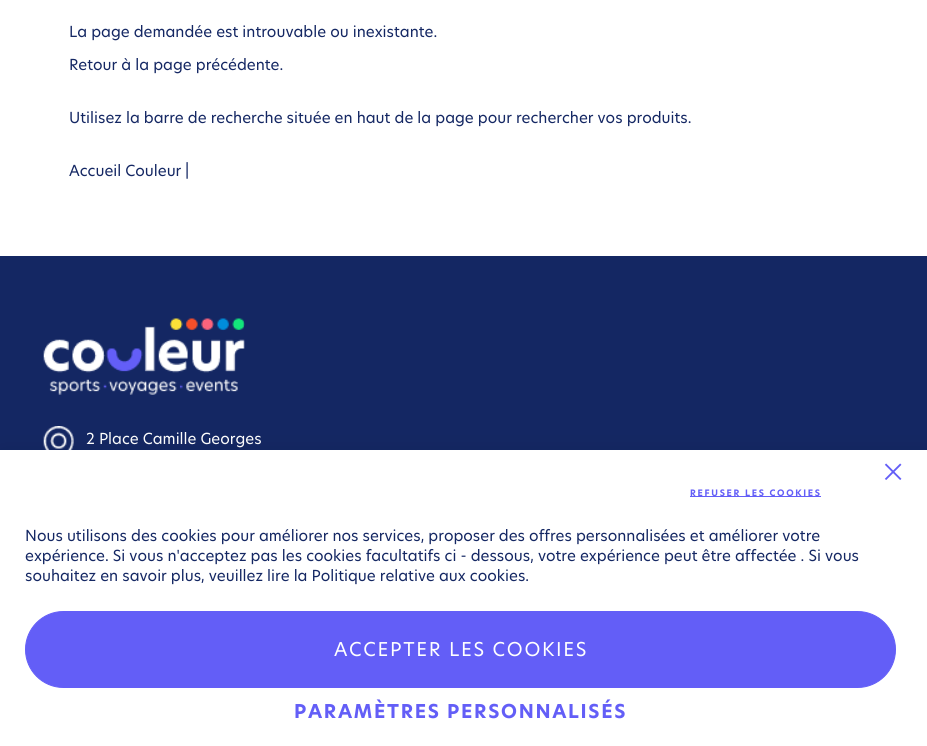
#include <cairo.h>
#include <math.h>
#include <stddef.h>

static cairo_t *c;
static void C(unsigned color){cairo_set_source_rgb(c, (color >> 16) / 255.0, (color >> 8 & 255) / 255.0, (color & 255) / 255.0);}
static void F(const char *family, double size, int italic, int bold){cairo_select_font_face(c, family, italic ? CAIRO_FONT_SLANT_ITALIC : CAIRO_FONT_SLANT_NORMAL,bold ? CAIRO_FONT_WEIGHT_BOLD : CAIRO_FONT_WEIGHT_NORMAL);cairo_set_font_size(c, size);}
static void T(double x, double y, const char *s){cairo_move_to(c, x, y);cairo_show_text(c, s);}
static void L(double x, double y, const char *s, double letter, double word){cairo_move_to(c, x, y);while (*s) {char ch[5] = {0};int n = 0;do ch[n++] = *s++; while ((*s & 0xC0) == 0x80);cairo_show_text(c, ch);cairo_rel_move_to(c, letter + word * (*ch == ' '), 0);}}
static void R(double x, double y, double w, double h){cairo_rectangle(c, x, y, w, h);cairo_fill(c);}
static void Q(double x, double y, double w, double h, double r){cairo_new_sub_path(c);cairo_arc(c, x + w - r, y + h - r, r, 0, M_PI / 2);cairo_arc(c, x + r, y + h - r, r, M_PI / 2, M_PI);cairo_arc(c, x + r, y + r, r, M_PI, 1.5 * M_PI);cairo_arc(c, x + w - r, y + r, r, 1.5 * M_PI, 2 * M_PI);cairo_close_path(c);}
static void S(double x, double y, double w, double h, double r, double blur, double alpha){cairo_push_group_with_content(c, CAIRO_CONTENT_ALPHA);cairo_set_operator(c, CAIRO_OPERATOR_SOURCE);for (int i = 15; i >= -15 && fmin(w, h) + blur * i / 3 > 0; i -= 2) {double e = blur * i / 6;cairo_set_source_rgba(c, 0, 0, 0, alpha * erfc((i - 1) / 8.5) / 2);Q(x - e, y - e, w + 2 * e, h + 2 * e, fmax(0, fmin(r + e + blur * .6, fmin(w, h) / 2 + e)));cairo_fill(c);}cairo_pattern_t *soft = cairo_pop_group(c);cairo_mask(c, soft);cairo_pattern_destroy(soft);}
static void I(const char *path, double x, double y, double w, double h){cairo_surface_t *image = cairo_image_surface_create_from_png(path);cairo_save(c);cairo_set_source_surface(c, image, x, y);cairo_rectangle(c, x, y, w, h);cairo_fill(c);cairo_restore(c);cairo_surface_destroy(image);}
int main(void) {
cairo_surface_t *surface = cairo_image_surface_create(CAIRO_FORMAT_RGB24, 927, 746);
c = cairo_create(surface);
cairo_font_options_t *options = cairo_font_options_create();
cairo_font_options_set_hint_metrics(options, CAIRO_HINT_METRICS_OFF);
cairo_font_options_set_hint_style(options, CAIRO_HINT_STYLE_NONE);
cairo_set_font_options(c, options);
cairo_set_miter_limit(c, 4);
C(0xffffff);
cairo_paint(c);
F("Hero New",15,0,0);
C(0x142763);
T(69,37,"La page demandée est introuvable ou inexistante.");
T(69,70,"Retour à la page précédente.");
T(69,123,"Utilisez la barre de recherche située en haut de la page pour rechercher vos produits.");
T(69,176,"Accueil Couleur |");
R(0,256,927,194);
I("1.png",43,318,202,77);
I("2.png",43,426,31,24);
C(0xffffff);
T(86,444,"2 Place Camille Georges");
C(0x000000);
S(0,448,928,296,0,11,.06);
C(0xffffff);
R(0,450,927,296);
I("3.png",884,463,18,17);
C(0x635ef7);
R(690,496,131,1);
F("Hero New",8.75,0,1);
L(690,496,"REFUSER LES COOKIES",1.7,0);
Q(25.5,611.5,870,76,38);
cairo_fill_preserve(c);
cairo_set_line_width(c,1);
cairo_stroke(c);
F("Hero New",18.75,0,0);
C(0xffffff);
L(334,656,"ACCEPTER LES COOKIES",1.7,0);
F("Hero New",18.75,0,1);
C(0x635ef7);
L(294,718,"PARAMÈTRES PERSONNALISÉS",1.7,0);
F("Hero New",15,0,0);
C(0x142763);
T(25,541,"Nous utilisons des cookies pour améliorer nos services, proposer des offres personnalisées et améliorer votre");
T(25,561,"expérience. Si vous n'acceptez pas les cookies facultatifs ci - dessous, votre expérience peut être affectée . Si vous");
T(25,581,"souhaitez en savoir plus, veuillez lire la Politique relative aux cookies.");
cairo_surface_write_to_png(surface, "o.png");
cairo_font_options_destroy(options);
cairo_destroy(c);
cairo_surface_destroy(surface);
return 0;
}
